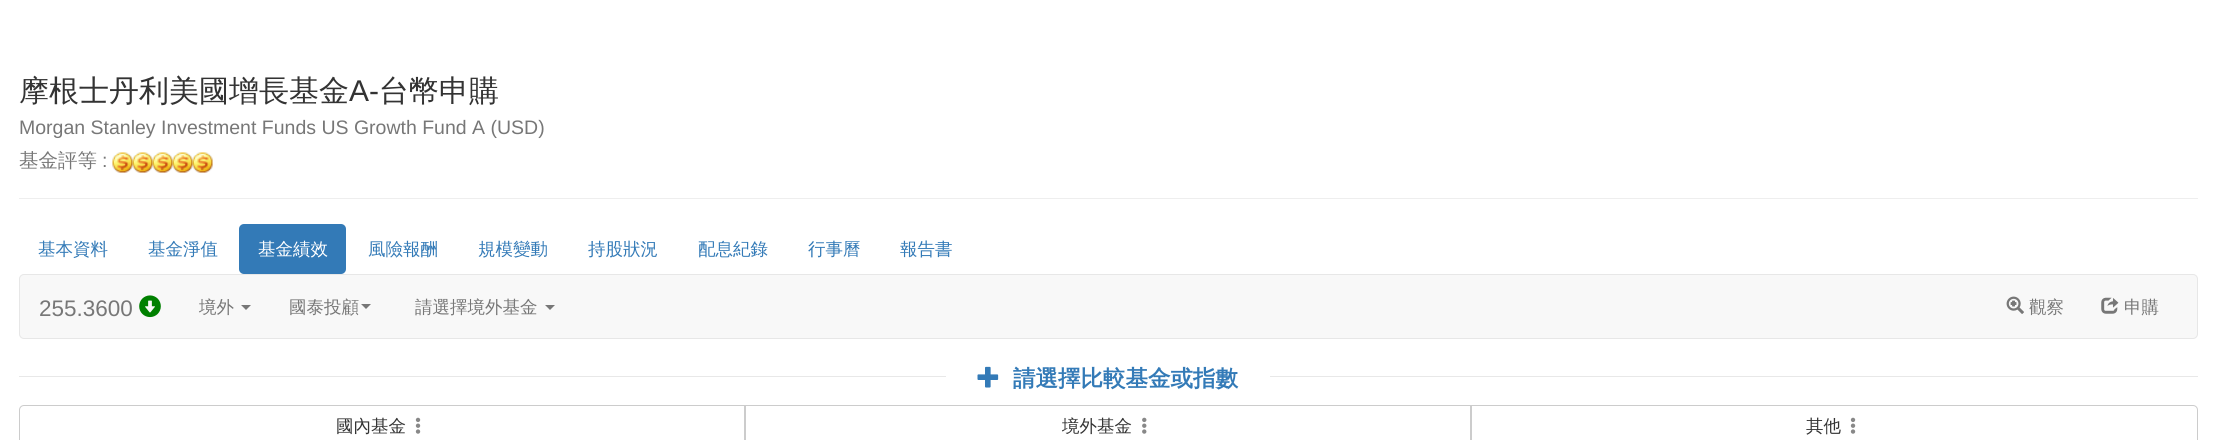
#include <cairo.h>
#include <math.h>
#include <stddef.h>

static cairo_t *c;
static void C(unsigned color){cairo_set_source_rgb(c, (color >> 16) / 255.0, (color >> 8 & 255) / 255.0, (color & 255) / 255.0);}
static void F(const char *family, double size, int italic, int bold){cairo_select_font_face(c, family, italic ? CAIRO_FONT_SLANT_ITALIC : CAIRO_FONT_SLANT_NORMAL,bold ? CAIRO_FONT_WEIGHT_BOLD : CAIRO_FONT_WEIGHT_NORMAL);cairo_set_font_size(c, size);}
static void T(double x, double y, const char *s){cairo_move_to(c, x, y);cairo_show_text(c, s);}
static void R(double x, double y, double w, double h){cairo_rectangle(c, x, y, w, h);cairo_fill(c);}
static void Q(double x, double y, double w, double h, double r){cairo_new_sub_path(c);cairo_arc(c, x + w - r, y + h - r, r, 0, M_PI / 2);cairo_arc(c, x + r, y + h - r, r, M_PI / 2, M_PI);cairo_arc(c, x + r, y + r, r, M_PI, 1.5 * M_PI);cairo_arc(c, x + w - r, y + r, r, 1.5 * M_PI, 2 * M_PI);cairo_close_path(c);}
static void I(const char *path, double x, double y, double w, double h){cairo_surface_t *image = cairo_image_surface_create_from_png(path);cairo_save(c);cairo_set_source_surface(c, image, x, y);cairo_rectangle(c, x, y, w, h);cairo_fill(c);cairo_restore(c);cairo_surface_destroy(image);}
int main(void) {
cairo_surface_t *surface = cairo_image_surface_create(CAIRO_FORMAT_RGB24, 2216, 440);
c = cairo_create(surface);
cairo_font_options_t *options = cairo_font_options_create();
cairo_font_options_set_hint_metrics(options, CAIRO_HINT_METRICS_OFF);
cairo_font_options_set_hint_style(options, CAIRO_HINT_STYLE_NONE);
cairo_set_font_options(c, options);
cairo_set_miter_limit(c, 4);
C(0xffffff);
cairo_paint(c);
C(0xeeeeee);
R(19,198,2179,1);
F("WenQuanYi Zen Hei Medium",30,0,0);
C(0x333333);
T(19,101,"摩根士丹利美國增長基金");
F("Liberation Sans",30,0,0);
T(349,101,"A-");
F("WenQuanYi Zen Hei Medium",30,0,0);
T(379,101,"台幣申購");
F("Liberation Sans",19.5,0,0);
C(0x777777);
T(19,134,"Morgan Stanley Investment Funds US Growth Fund A (USD)");
F("WenQuanYi Zen Hei Medium",19.5,0,0);
T(19,167,"基金評等");
F("Liberation Sans",19.5,0,0);
T(102,167,":");
I("1.png",112,152,21,21);
I("2.png",132,152,21,21);
I("2.png",152,152,21,21);
I("2.png",172,152,21,21);
I("2.png",192,152,21,21);
F("WenQuanYi Zen Hei Medium",17.5,0,0);
C(0x337ab7);
T(38,255,"基本資料");
T(148,255,"基金淨值");
Q(239,224,107,50,5);
cairo_fill(c);
C(0xffffff);
T(258,255,"基金績效");
C(0x337ab7);
T(368,255,"風險報酬");
T(478,255,"規模變動");
T(588,255,"持股狀況");
T(698,255,"配息紀錄");
T(808,255,"行事曆");
T(900,255,"報告書");
C(0xf8f8f8);
Q(19.5,274.5,2178,64,4.5);
cairo_fill_preserve(c);
C(0xe7e7e7);
cairo_set_line_width(c,1);
cairo_stroke(c);
F("Liberation Sans",22.5,0,0);
C(0x777777);
T(39,316,"255.3600");
I("3.png",139,295,22,23);
F("WenQuanYi Zen Hei Medium",17.5,0,0);
T(199,313,"境外");
cairo_new_path(c);
cairo_move_to(c,241,305);
cairo_line_to(c,251,305);
cairo_line_to(c,246,310);
cairo_close_path(c);
cairo_fill(c);
T(289,313,"國泰投顧");
cairo_new_path(c);
cairo_move_to(c,361,304);
cairo_line_to(c,371,304);
cairo_line_to(c,366,309);
cairo_close_path(c);
cairo_fill(c);
T(415,313,"請選擇境外基金");
cairo_new_path(c);
cairo_move_to(c,545,305);
cairo_line_to(c,555,305);
cairo_line_to(c,550,310);
cairo_close_path(c);
cairo_fill(c);
I("4.png",2006,296,18,18);
T(2029,313,"觀察");
I("5.png",2101,297,18,17);
T(2124,313,"申購");
C(0xe8e8e8);
R(19,376,2179,1);
C(0xffffff);
R(946,376,324,1);
I("6.png",977,366,22,22);
F("WenQuanYi Zen Hei",22.5,0,1);
C(0x337ab7);
T(1013,386,"請選擇比較基金或指數");
cairo_new_path(c);
cairo_move_to(c,24,405.5);
cairo_line_to(c,744.5,405.5);
cairo_line_to(c,744.5,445.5);
cairo_line_to(c,24,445.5);
cairo_curve_to(c,21.5,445.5,19.5,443.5,19.5,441);
cairo_line_to(c,19.5,410);
cairo_curve_to(c,19.5,407.5,21.5,405.5,24,405.5);
cairo_close_path(c);
C(0xcccccc);
cairo_stroke(c);
F("WenQuanYi Zen Hei Medium",17.5,0,0);
C(0x333333);
T(336,432,"國內基金");
I("7.png",415,417,6,17);
cairo_rectangle(c,745.5,405.5,725,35);
C(0xcccccc);
cairo_stroke(c);
C(0x333333);
T(1062,432,"境外基金");
I("8.png",1142,417,5,17);
cairo_new_path(c);
cairo_move_to(c,1471.5,405.5);
cairo_line_to(c,2193,405.5);
cairo_curve_to(c,2195.5,405.5,2197.5,407.5,2197.5,410);
cairo_line_to(c,2197.5,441);
cairo_curve_to(c,2197.5,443.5,2195.5,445.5,2193,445.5);
cairo_line_to(c,1471.5,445.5);
cairo_close_path(c);
C(0xcccccc);
cairo_stroke(c);
C(0x333333);
T(1806,432,"其他");
I("7.png",1850,417,6,17);
cairo_surface_write_to_png(surface, "o.png");
cairo_font_options_destroy(options);
cairo_destroy(c);
cairo_surface_destroy(surface);
return 0;
}
